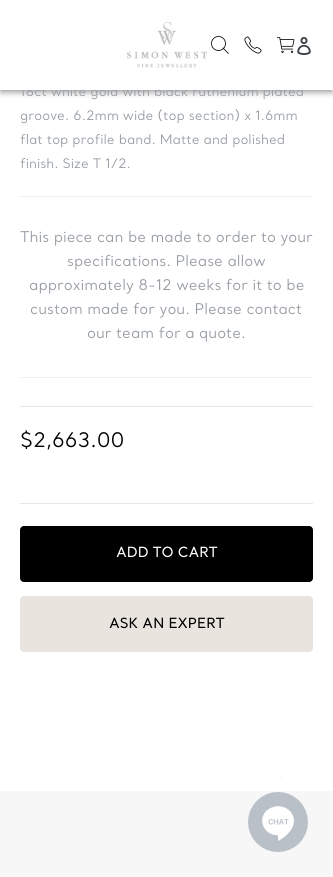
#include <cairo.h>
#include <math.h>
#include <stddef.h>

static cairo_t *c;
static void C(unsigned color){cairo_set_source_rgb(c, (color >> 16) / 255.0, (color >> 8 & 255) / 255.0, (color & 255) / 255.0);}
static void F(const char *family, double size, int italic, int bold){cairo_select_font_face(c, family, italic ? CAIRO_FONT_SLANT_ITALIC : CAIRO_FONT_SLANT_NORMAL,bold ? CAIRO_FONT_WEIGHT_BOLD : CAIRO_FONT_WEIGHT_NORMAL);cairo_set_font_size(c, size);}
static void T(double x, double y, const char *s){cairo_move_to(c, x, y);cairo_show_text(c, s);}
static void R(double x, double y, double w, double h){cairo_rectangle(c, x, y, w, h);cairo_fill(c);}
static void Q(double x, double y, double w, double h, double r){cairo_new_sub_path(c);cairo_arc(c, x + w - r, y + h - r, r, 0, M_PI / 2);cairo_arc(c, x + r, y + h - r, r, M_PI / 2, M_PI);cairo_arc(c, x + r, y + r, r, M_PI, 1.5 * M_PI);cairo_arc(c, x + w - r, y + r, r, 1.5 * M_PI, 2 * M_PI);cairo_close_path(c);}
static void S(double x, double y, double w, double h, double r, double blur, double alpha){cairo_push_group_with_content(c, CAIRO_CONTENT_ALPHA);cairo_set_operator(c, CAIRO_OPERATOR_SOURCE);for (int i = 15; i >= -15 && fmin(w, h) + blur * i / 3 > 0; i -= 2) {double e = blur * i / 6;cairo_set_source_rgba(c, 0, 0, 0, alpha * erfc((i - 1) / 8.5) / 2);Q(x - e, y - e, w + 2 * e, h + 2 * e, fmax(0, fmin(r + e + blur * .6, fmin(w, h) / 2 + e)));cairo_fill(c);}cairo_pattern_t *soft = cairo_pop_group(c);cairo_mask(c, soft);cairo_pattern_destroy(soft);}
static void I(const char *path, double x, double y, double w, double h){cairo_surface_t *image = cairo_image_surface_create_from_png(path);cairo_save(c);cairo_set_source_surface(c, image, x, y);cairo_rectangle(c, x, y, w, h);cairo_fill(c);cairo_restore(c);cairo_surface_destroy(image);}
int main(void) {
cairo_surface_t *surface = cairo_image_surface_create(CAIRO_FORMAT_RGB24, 333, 877);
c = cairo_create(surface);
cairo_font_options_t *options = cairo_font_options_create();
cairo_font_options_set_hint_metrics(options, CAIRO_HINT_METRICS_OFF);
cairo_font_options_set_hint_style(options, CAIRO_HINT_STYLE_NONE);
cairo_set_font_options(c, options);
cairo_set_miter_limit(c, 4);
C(0xffffff);
cairo_paint(c);
C(0x000000);
S(1,3,331,88,0,2,.2);
S(0,1,333,90,0,5,.12);
S(0,4,333,90,0,2.5,.14);
F("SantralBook",13.1,0,0);
C(0x969ca3);
T(20,96,"18ct white gold with black ruthenium plated");
C(0xffffff);
R(0,0,333,90);
I("1.png",127,22,80,46);
cairo_arc(c,218.5,43.5,7,0,2 * M_PI);
C(0x000000);
cairo_set_line_width(c,.8);
cairo_stroke(c);
cairo_new_path(c);
cairo_move_to(c,228.5,53.5);
cairo_line_to(c,223,48);
cairo_set_line_cap(c,CAIRO_LINE_CAP_ROUND);
cairo_set_line_join(c,CAIRO_LINE_JOIN_ROUND);
cairo_stroke(c);
I("2.png",244,36,18,18);
I("3.png",277,37,18,16);
I("4.png",297,37,14,18);
C(0xf7f7f7);
R(0,791,333,86);
I("5.png",248,777,60,75);
C(0x969ca3);
T(20,120,"groove. 6.2mm wide (top section) x 1.6mm");
T(20,144,"flat top profile band. Matte and polished");
T(20,168,"finish. Size T 1/2.");
C(0xeff0f1);
R(20,196,293,1);
R(20,377,293,1);
F("SantralBook",14.75,0,0);
C(0x969ca3);
T(20,242,"This piece can be made to order to your");
T(67,266,"specifications. Please allow");
T(29,290,"approximately 8-12 weeks for it to be");
T(30,314,"custom made for you. Please contact");
T(87,338,"our team for a quote.");
C(0xe6e6e6);
R(20,406,293,1);
R(20,503,293,1);
F("SantralBook",20,0,0);
C(0x000000);
T(20,447,"$2,663.00");
Q(20,526,293,56,4);
cairo_fill(c);
F("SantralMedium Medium",14,0,0);
C(0xffffff);
T(116,557,"ADD TO CART");
C(0xe9e4de);
Q(20,596,293,56,4);
cairo_fill(c);
C(0x000000);
T(109,628,"ASK AN EXPERT");
cairo_surface_write_to_png(surface, "o.png");
cairo_font_options_destroy(options);
cairo_destroy(c);
cairo_surface_destroy(surface);
return 0;
}
